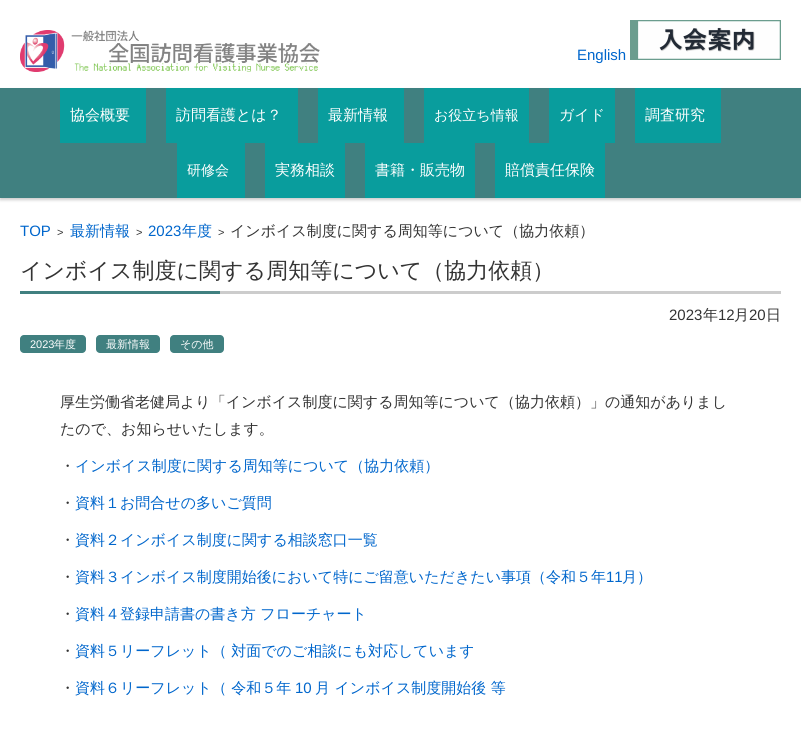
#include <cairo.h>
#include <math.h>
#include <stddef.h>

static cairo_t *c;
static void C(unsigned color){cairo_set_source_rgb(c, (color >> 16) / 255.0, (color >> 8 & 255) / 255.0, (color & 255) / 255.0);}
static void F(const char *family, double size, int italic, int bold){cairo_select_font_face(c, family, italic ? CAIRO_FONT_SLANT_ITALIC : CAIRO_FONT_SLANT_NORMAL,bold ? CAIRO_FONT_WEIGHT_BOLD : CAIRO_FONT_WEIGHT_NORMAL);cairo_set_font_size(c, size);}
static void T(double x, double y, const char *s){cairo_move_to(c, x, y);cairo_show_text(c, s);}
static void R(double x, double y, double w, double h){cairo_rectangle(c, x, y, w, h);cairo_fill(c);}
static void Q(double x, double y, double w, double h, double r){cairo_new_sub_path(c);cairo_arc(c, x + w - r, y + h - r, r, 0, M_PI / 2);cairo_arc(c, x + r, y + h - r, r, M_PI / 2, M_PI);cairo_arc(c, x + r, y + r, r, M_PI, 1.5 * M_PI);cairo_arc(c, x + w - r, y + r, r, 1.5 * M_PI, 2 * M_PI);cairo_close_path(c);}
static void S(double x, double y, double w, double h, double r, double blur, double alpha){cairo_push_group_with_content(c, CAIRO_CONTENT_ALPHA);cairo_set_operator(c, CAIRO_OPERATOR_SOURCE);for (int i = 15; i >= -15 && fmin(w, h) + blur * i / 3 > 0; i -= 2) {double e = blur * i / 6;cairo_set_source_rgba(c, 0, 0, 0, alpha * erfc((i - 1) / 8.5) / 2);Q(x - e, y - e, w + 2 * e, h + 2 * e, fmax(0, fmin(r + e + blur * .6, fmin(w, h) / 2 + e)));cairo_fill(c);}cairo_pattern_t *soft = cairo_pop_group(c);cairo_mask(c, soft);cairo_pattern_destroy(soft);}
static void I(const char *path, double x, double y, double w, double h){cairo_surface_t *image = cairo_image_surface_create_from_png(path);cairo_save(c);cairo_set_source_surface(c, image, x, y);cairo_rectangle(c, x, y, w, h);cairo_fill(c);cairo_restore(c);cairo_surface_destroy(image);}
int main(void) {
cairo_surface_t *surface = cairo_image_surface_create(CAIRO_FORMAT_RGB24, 801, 735);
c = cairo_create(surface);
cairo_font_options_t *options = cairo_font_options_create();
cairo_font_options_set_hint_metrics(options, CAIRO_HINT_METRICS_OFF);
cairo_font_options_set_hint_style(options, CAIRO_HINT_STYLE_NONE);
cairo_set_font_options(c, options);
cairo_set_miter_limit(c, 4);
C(0xffffff);
cairo_paint(c);
I("1.png",20,30,300,42);
F("Liberation Sans",15,0,0);
C(0x0066cc);
T(577,60,"English");
I("2.png",630,20,151,40);
C(0x000000);
S(0,90,801,110,0,1.5,.2);
C(0x408080);
R(0,88,801,110);
C(0x099d9d);
R(60,88,86,55);
F("WenQuanYi Zen Hei Medium",15,0,0);
C(0xffffff);
T(70,120,"協会概要");
C(0x099d9d);
R(166,88,132,55);
C(0xffffff);
T(176,120,"訪問看護とは？");
C(0x099d9d);
R(318,88,86,55);
C(0xffffff);
T(328,120,"最新情報");
C(0x099d9d);
R(424,88,105,55);
F("WenQuanYi Zen Hei Medium",14,0,0);
C(0xffffff);
T(434,120,"お役立ち情報");
C(0x099d9d);
R(549,88,66,55);
F("WenQuanYi Zen Hei Medium",15,0,0);
C(0xffffff);
T(559,120,"ガイド");
C(0x099d9d);
R(635,88,86,55);
C(0xffffff);
T(645,120,"調査研究");
C(0x099d9d);
R(177,143,68,55);
F("WenQuanYi Zen Hei Medium",14,0,0);
C(0xffffff);
T(187,175,"研修会");
C(0x099d9d);
R(265,143,80,55);
F("WenQuanYi Zen Hei Medium",15,0,0);
C(0xffffff);
T(275,175,"実務相談");
C(0x099d9d);
R(365,143,110,55);
C(0xffffff);
T(375,175,"書籍・販売物");
C(0x099d9d);
R(495,143,110,55);
C(0xffffff);
T(505,175,"賠償責任保険");
F("Liberation Sans",15,0,0);
C(0x0066cc);
T(20,236,"TOP");
F("Liberation Sans",11,0,0);
C(0x333333);
T(57,236,">");
F("WenQuanYi Zen Hei Medium",15,0,0);
C(0x0066cc);
T(70,236,"最新情報");
F("Liberation Sans",11,0,0);
C(0x333333);
T(136,236,">");
F("Liberation Sans",15,0,0);
C(0x0066cc);
T(148,236,"2023");
F("WenQuanYi Zen Hei Medium",15,0,0);
T(182,236,"年度");
F("Liberation Sans",11,0,0);
C(0x333333);
T(218,236,">");
F("WenQuanYi Zen Hei Medium",15,0,0);
T(230,236,"インボイス制度に関する周知等について（協力依頼）");
I("3.png",20,291,761,3);
F("WenQuanYi Zen Hei Medium",22,0,0);
T(20,278,"インボイス制度に関する周知等について（協力依頼）");
F("Liberation Sans",15,0,0);
T(669,320,"2023");
F("WenQuanYi Zen Hei Medium",15,0,0);
T(703,320,"年");
F("Liberation Sans",15,0,0);
T(718,320,"12");
F("WenQuanYi Zen Hei Medium",15,0,0);
T(734,320,"月");
F("Liberation Sans",15,0,0);
T(749,320,"20");
F("WenQuanYi Zen Hei Medium",15,0,0);
T(766,320,"日");
C(0x408080);
Q(20,335,66,18,4);
cairo_fill(c);
F("Liberation Sans",11,0,0);
C(0xffffff);
T(30,348,"2023");
F("WenQuanYi Zen Hei Medium",11,0,0);
T(54,348,"年度");
C(0x408080);
Q(96,335,64,18,4);
cairo_fill(c);
C(0xffffff);
T(106,348,"最新情報");
C(0x408080);
Q(170,335,54,18,4);
cairo_fill(c);
C(0xffffff);
T(180,348,"その他");
F("WenQuanYi Zen Hei Medium",15,0,0);
C(0x333333);
T(60,407,"厚生労働省老健局より「インボイス制度に関する周知等について（協力依頼）」の通知がありまし");
T(60,434,"たので、お知らせいたします。");
T(60,471,"・");
C(0x0066cc);
T(75,471,"インボイス制度に関する周知等について（協力依頼）");
C(0x333333);
T(60,508,"・");
C(0x0066cc);
T(75,508,"資料１お問合せの多いご質問");
C(0x333333);
T(60,545,"・");
C(0x0066cc);
T(75,545,"資料２インボイス制度に関する相談窓口一覧");
C(0x333333);
T(60,582,"・");
C(0x0066cc);
T(75,582,"資料３インボイス制度開始後において特にご留意いただきたい事項（令和５年");
F("Liberation Sans",15,0,0);
T(606,582,"11");
F("WenQuanYi Zen Hei Medium",15,0,0);
T(622,582,"月）");
C(0x333333);
T(60,619,"・");
C(0x0066cc);
T(75,619,"資料４登録申請書の書き方 フローチャート");
C(0x333333);
T(60,656,"・");
C(0x0066cc);
T(75,656,"資料５リーフレット（ 対面でのご相談にも対応しています");
C(0x333333);
T(60,693,"・");
C(0x0066cc);
T(75,693,"資料６リーフレット（ 令和５年");
F("Liberation Sans",15,0,0);
T(295,693,"10");
F("WenQuanYi Zen Hei Medium",15,0,0);
T(315,693,"月 インボイス制度開始後 等");
cairo_surface_write_to_png(surface, "o.png");
cairo_font_options_destroy(options);
cairo_destroy(c);
cairo_surface_destroy(surface);
return 0;
}
